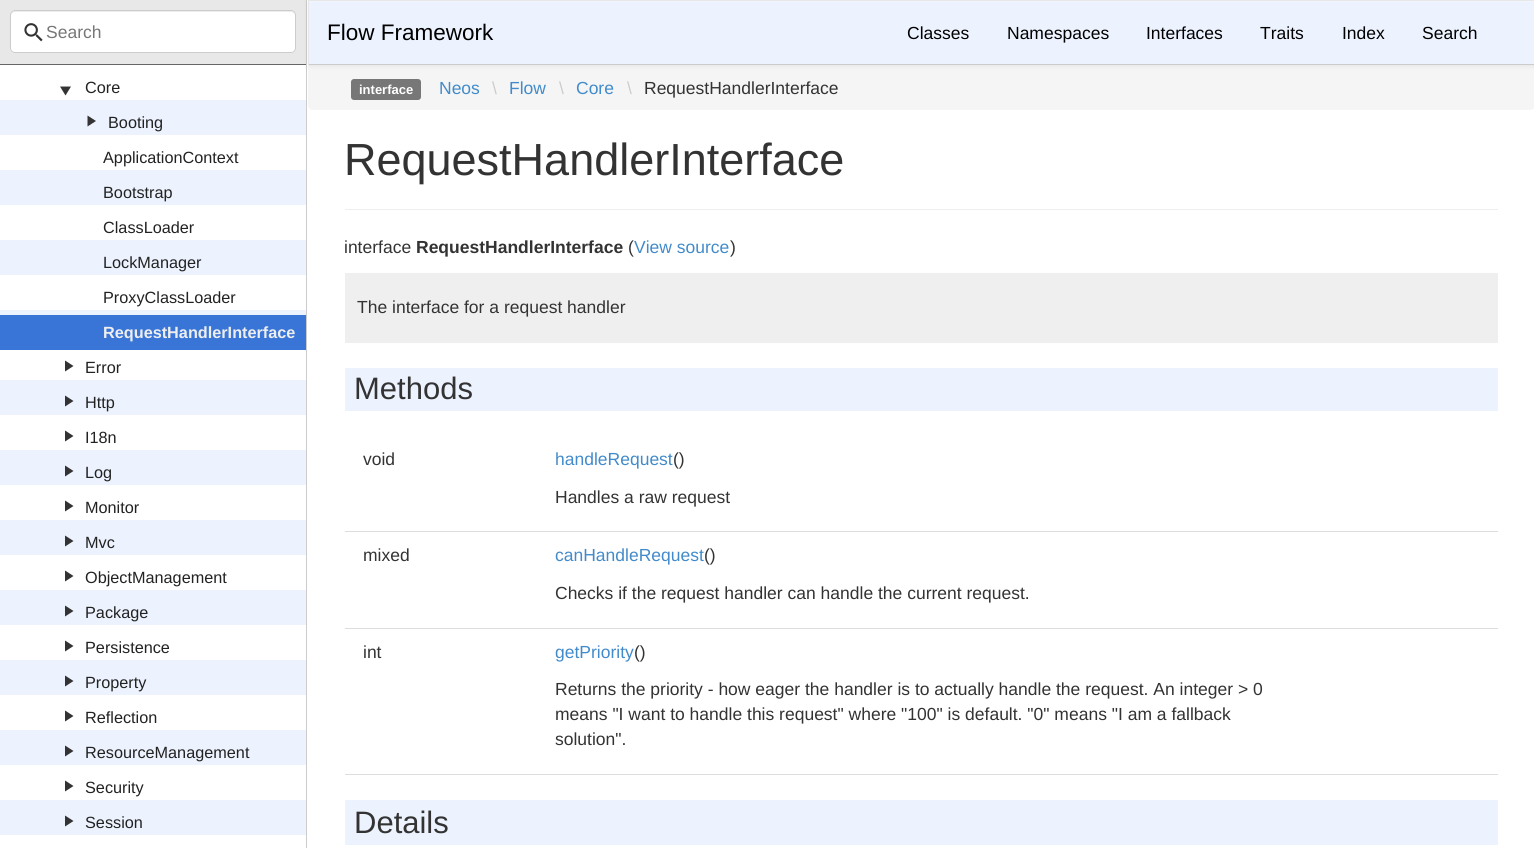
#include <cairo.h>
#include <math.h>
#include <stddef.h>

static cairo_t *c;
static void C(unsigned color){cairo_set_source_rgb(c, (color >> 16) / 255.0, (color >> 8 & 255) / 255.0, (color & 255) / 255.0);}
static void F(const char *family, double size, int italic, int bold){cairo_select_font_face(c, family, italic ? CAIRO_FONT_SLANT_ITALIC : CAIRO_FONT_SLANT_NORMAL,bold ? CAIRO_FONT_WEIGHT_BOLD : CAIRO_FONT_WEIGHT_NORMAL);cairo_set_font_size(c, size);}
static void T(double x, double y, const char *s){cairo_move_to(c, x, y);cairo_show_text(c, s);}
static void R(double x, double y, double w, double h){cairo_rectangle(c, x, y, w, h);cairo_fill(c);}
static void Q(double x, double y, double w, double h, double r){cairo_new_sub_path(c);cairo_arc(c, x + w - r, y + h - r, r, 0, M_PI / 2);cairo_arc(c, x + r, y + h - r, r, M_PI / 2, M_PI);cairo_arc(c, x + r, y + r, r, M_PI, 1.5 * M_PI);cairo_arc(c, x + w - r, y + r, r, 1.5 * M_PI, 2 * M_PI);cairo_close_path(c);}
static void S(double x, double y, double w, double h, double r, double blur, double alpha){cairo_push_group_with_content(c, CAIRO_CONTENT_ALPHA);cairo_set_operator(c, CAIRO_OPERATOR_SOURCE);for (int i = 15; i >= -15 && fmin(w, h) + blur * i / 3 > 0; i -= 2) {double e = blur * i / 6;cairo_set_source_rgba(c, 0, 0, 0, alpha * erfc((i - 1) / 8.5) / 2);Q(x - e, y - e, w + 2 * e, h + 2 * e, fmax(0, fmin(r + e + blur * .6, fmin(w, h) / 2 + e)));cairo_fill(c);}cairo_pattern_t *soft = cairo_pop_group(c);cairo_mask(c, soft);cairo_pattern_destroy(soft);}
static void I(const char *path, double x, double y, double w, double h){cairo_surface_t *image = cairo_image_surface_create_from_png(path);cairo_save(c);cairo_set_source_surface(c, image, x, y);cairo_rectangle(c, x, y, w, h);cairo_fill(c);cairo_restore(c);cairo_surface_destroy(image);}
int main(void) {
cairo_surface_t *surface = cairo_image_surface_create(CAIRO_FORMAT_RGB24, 1534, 848);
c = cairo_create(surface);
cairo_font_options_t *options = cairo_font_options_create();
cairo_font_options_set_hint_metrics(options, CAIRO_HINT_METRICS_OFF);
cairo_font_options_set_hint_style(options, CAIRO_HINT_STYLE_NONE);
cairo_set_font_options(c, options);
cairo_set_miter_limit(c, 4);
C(0xffffff);
cairo_paint(c);
C(0xcccccc);
R(306,0,1,848);
C(0xe8e8e8);
R(0,0,306,64);
C(0x666666);
R(0,64,306,1);
C(0xffffff);
Q(10,10,286,43,5);
cairo_fill(c);
C(0xececec);
cairo_new_path(c);
cairo_move_to(c,15,12);
cairo_line_to(c,291,12);
cairo_curve_to(c,293,12,295,14,295,16);
cairo_curve_to(c,295,13,294,11,291,11);
cairo_line_to(c,15,11);
cairo_curve_to(c,12,11,11,13,11,16);
cairo_curve_to(c,11,14,13,12,15,12);
cairo_close_path(c);
cairo_fill(c);
Q(10.5,10.5,285,42,4.5);
C(0xcccccc);
cairo_set_line_width(c,1);
cairo_stroke(c);
I("1.png",24,23,19,19);
F("Liberation Sans",17.5,0,0);
C(0x777777);
T(46,38,"Search");
I("2.png",0,100,306,735);
C(0x333333);
cairo_new_path(c);
cairo_move_to(c,71,86.5);
cairo_line_to(c,60,86.5);
cairo_line_to(c,65.5,95.5);
cairo_close_path(c);
cairo_fill(c);
F("Liberation Sans",16.25,0,0);
C(0x222222);
T(85,93,"Core");
C(0x333333);
cairo_new_path(c);
cairo_move_to(c,87.5,115.5);
cairo_line_to(c,87.5,126.5);
cairo_line_to(c,96,121);
cairo_close_path(c);
cairo_fill(c);
C(0x222222);
T(108,128,"Booting");
T(103,163,"ApplicationContext");
T(103,198,"Bootstrap");
T(103,233,"ClassLoader");
T(103,268,"LockManager");
T(103,303,"ProxyClassLoader");
C(0x3875d7);
R(0,315,306,35);
F("Liberation Sans",16.25,0,1);
C(0xeeeeee);
T(103,338,"RequestHandlerInterface");
C(0x333333);
cairo_new_path(c);
cairo_move_to(c,65,360.5);
cairo_line_to(c,65,371.5);
cairo_line_to(c,73.5,366);
cairo_close_path(c);
cairo_fill(c);
F("Liberation Sans",16.25,0,0);
C(0x222222);
T(85,373,"Error");
C(0x333333);
cairo_new_path(c);
cairo_move_to(c,65,395.5);
cairo_line_to(c,65,406.5);
cairo_line_to(c,73.5,401);
cairo_close_path(c);
cairo_fill(c);
C(0x222222);
T(85,408,"Http");
C(0x333333);
cairo_new_path(c);
cairo_move_to(c,65,430.5);
cairo_line_to(c,65,441.5);
cairo_line_to(c,73.5,436);
cairo_close_path(c);
cairo_fill(c);
C(0x222222);
T(85,443,"I18n");
C(0x333333);
cairo_new_path(c);
cairo_move_to(c,65,465.5);
cairo_line_to(c,65,476.5);
cairo_line_to(c,73.5,471);
cairo_close_path(c);
cairo_fill(c);
C(0x222222);
T(85,478,"Log");
C(0x333333);
cairo_new_path(c);
cairo_move_to(c,65,500.5);
cairo_line_to(c,65,511.5);
cairo_line_to(c,73.5,506);
cairo_close_path(c);
cairo_fill(c);
C(0x222222);
T(85,513,"Monitor");
C(0x333333);
cairo_new_path(c);
cairo_move_to(c,65,535.5);
cairo_line_to(c,65,546.5);
cairo_line_to(c,73.5,541);
cairo_close_path(c);
cairo_fill(c);
C(0x222222);
T(85,548,"Mvc");
C(0x333333);
cairo_new_path(c);
cairo_move_to(c,65,570.5);
cairo_line_to(c,65,581.5);
cairo_line_to(c,73.5,576);
cairo_close_path(c);
cairo_fill(c);
C(0x222222);
T(85,583,"ObjectManagement");
C(0x333333);
cairo_new_path(c);
cairo_move_to(c,65,605.5);
cairo_line_to(c,65,616.5);
cairo_line_to(c,73.5,611);
cairo_close_path(c);
cairo_fill(c);
C(0x222222);
T(85,618,"Package");
C(0x333333);
cairo_new_path(c);
cairo_move_to(c,65,640.5);
cairo_line_to(c,65,651.5);
cairo_line_to(c,73.5,646);
cairo_close_path(c);
cairo_fill(c);
C(0x222222);
T(85,653,"Persistence");
C(0x333333);
cairo_new_path(c);
cairo_move_to(c,65,675.5);
cairo_line_to(c,65,686.5);
cairo_line_to(c,73.5,681);
cairo_close_path(c);
cairo_fill(c);
C(0x222222);
T(85,688,"Property");
C(0x333333);
cairo_new_path(c);
cairo_move_to(c,65,710.5);
cairo_line_to(c,65,721.5);
cairo_line_to(c,73.5,716);
cairo_close_path(c);
cairo_fill(c);
C(0x222222);
T(85,723,"Reflection");
C(0x333333);
cairo_new_path(c);
cairo_move_to(c,65,745.5);
cairo_line_to(c,65,756.5);
cairo_line_to(c,73.5,751);
cairo_close_path(c);
cairo_fill(c);
C(0x222222);
T(85,758,"ResourceManagement");
C(0x333333);
cairo_new_path(c);
cairo_move_to(c,65,780.5);
cairo_line_to(c,65,791.5);
cairo_line_to(c,73.5,786);
cairo_close_path(c);
cairo_fill(c);
C(0x222222);
T(85,793,"Security");
C(0x333333);
cairo_new_path(c);
cairo_move_to(c,65,815.5);
cairo_line_to(c,65,826.5);
cairo_line_to(c,73.5,821);
cairo_close_path(c);
cairo_fill(c);
C(0x222222);
T(85,828,"Session");
C(0xf5f5f5);
cairo_new_path(c);
cairo_move_to(c,308,65);
cairo_line_to(c,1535,65);
cairo_line_to(c,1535,105);
cairo_curve_to(c,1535,108,1533,110,1530,110);
cairo_line_to(c,313,110);
cairo_curve_to(c,310,110,308,108,308,105);
cairo_close_path(c);
cairo_fill(c);
C(0x000000);
S(308,1,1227,65,0,3,.07);
C(0xedf3fe);
R(309,2,1225,62);
C(0xf0f5fe);
R(309,1,1225,1);
C(0xe7e7e7);
R(308,0,1226,1);
C(0xcccccc);
R(308,64,1226,1);
C(0xe7e7e7);
R(308,0,1,65);
F("Liberation Sans",22.5,0,0);
C(0x000000);
T(327,40,"Flow Framework");
F("Liberation Sans",17.5,0,0);
T(907,39,"Classes");
T(1007,39,"Namespaces");
T(1146,39,"Interfaces");
T(1260,39,"Traits");
T(1342,39,"Index");
T(1422,39,"Search");
C(0x777777);
Q(351,79,70,21,3);
cairo_fill(c);
F("Liberation Sans",13,0,1);
C(0xffffff);
T(359,94,"interface");
F("Liberation Sans",17.5,0,0);
C(0x428bca);
T(439,94,"Neos");
C(0xcccccc);
T(492,94,"\\");
C(0x428bca);
T(509,94,"Flow");
C(0xcccccc);
T(559,94,"\\");
C(0x428bca);
T(576,94,"Core");
C(0xcccccc);
T(627,94,"\\");
C(0x333333);
T(644,94,"RequestHandlerInterface");
C(0xeeeeee);
R(345,209,1153,1);
F("Liberation Sans",45,0,0);
C(0x333333);
T(344,175,"RequestHandlerInterface");
F("Liberation Sans",17.5,0,0);
T(344,253,"interface");
F("Liberation Sans",17.5,0,1);
T(416,253,"RequestHandlerInterface");
F("Liberation Sans",17.5,0,0);
T(628,253,"(");
C(0x428bca);
T(634,253,"View source");
C(0x333333);
T(730,253,")");
C(0xefefef);
R(345,273,1153,70);
C(0x333333);
T(357,313,"The interface for a request handler");
C(0xedf3fe);
R(345,368,1153,43);
F("Liberation Sans",31,0,0);
C(0x333333);
T(354,399,"Methods");
C(0xdddddd);
R(345,531,1153,1);
F("Liberation Sans",17.5,0,0);
C(0x333333);
T(363,465,"void");
C(0x428bca);
T(555,465,"handleRequest");
C(0x333333);
T(673,465,"()");
T(555,503,"Handles a raw request");
C(0xdddddd);
R(345,628,1153,1);
C(0x333333);
T(363,561,"mixed");
C(0x428bca);
T(555,561,"canHandleRequest");
C(0x333333);
T(704,561,"()");
T(555,599,"Checks if the request handler can handle the current request.");
C(0xdddddd);
R(345,774,1153,1);
C(0x333333);
T(363,658,"int");
C(0x428bca);
T(555,658,"getPriority");
C(0x333333);
T(634,658,"()");
T(555,695,"Returns the priority - how eager the handler is to actually handle the request. An integer > 0");
T(555,720,"means \"I want to handle this request\" where \"100\" is default. \"0\" means \"I am a fallback");
T(555,745,"solution\".");
C(0xedf3fe);
R(345,800,1153,45);
F("Liberation Sans",31,0,0);
C(0x333333);
T(354,833,"Details");
cairo_surface_write_to_png(surface, "o.png");
cairo_font_options_destroy(options);
cairo_destroy(c);
cairo_surface_destroy(surface);
return 0;
}
